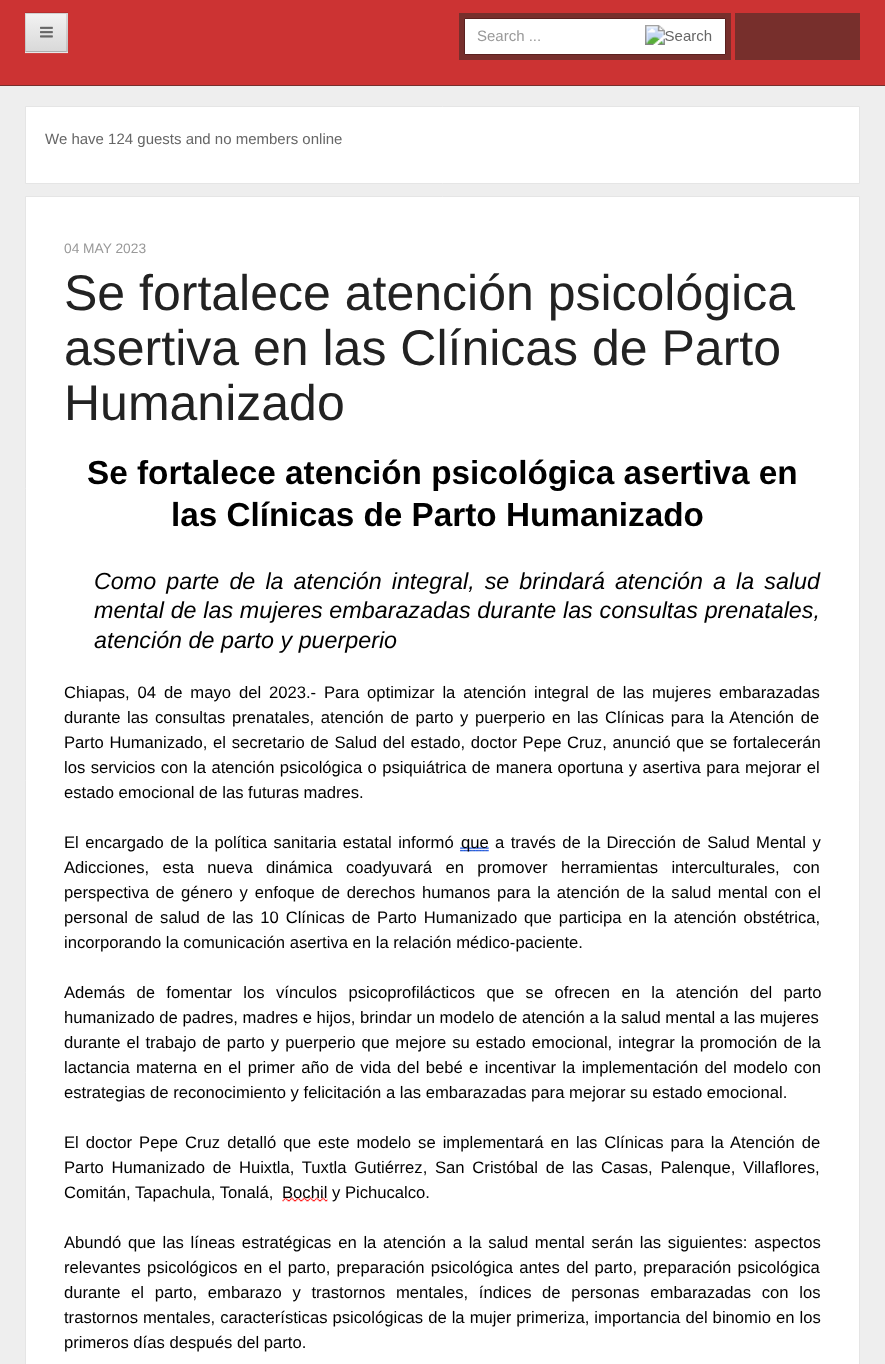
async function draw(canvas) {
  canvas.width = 885
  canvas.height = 1364
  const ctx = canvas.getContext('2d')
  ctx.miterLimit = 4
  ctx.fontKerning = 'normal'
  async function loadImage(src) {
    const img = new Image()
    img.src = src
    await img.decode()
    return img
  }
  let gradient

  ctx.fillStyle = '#eee'
  ctx.fillRect(0, 0, 885, 1364)
  ctx.fillStyle = '#c33'
  ctx.fillRect(0, 0, 885, 85)
  ctx.fillStyle = '#772f2c'
  ctx.fillRect(0, 85, 885, 1)
  ctx.fillStyle = '#d04242'
  ctx.beginPath()
  ctx.moveTo(25, 52)
  ctx.lineTo(25, 54)
  ctx.lineTo(68, 54)
  ctx.lineTo(68, 14)
  ctx.lineTo(68, 52)
  ctx.closePath()
  ctx.fill()
  ctx.fillStyle = '#e8e8e8'
  ctx.fillRect(25, 13, 43, 40)
  gradient = ctx.createLinearGradient(46, 14, 46, 51)
  gradient.addColorStop(0, '#f2f2f2')
  gradient.addColorStop(1, '#d9d9d9')
  ctx.fillStyle = gradient
  ctx.fillRect(25, 14, 43, 37)
  ctx.fillStyle = '#0000001a'
  ctx.beginPath()
  ctx.moveTo(25, 12)
  ctx.lineTo(68, 12)
  ctx.lineTo(66, 14)
  ctx.lineTo(26, 14)
  ctx.closePath()
  ctx.fill()
  ctx.beginPath()
  ctx.moveTo(68, 12)
  ctx.lineTo(68, 52)
  ctx.lineTo(66, 51)
  ctx.lineTo(66, 14)
  ctx.closePath()
  ctx.fill()
  ctx.fillStyle = '#00000040'
  ctx.beginPath()
  ctx.moveTo(68, 52)
  ctx.lineTo(25, 52)
  ctx.lineTo(26, 51)
  ctx.lineTo(66, 51)
  ctx.closePath()
  ctx.fill()
  ctx.fillStyle = '#0000001a'
  ctx.beginPath()
  ctx.moveTo(25, 52)
  ctx.lineTo(25, 12)
  ctx.lineTo(26, 14)
  ctx.lineTo(26, 51)
  ctx.closePath()
  ctx.fill()
  ctx.drawImage(await loadImage('image0.png'), 40, 26, 13, 12)
  ctx.fillStyle = '#772f2c'
  ctx.fillRect(459, 13, 272, 47)
  ctx.fillStyle = '#fff'
  ctx.beginPath()
  ctx.rect(464.5, 18.5, 261, 36)
  ctx.fill()
  ctx.strokeStyle = '#5b211f'
  ctx.stroke()
  ctx.font = '15px Liberation Sans'
  ctx.fillStyle = '#999'
  ctx.fillText('Search ...', 477, 41)
  ctx.drawImage(await loadImage('image1.png'), 645, 25, 67, 20)
  ctx.fillStyle = '#772f2c'
  ctx.fillRect(735, 13, 125, 47)
  ctx.fillStyle = '#fff'
  ctx.beginPath()
  ctx.rect(25.5, 106.5, 834, 77)
  ctx.fill()
  ctx.strokeStyle = '#e5e5e5'
  ctx.stroke()
  ctx.fillStyle = '#666'
  ctx.fillText('We have 124 guests and no members online', 45, 144)
  ctx.fillStyle = '#fff'
  ctx.beginPath()
  ctx.rect(25.5, 196.5, 834, 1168)
  ctx.fill()
  ctx.stroke()
  ctx.font = '13.75px Liberation Sans'
  ctx.fillStyle = '#999'
  ctx.fillText('04 MAY 2023', 64, 253)
  ctx.font = '50px Liberation Sans'
  ctx.fillStyle = '#222'
  ctx.fillText('Se fortalece atención psicológica', 64, 310)
  ctx.fillText('asertiva en las Clínicas de Parto', 64, 365)
  ctx.fillText('Humanizado', 64, 420)
  ctx.font = 'bold 33.3px Liberation Sans'
  ctx.fillStyle = '#000'
  ctx.fillText('Se fortalece atención psicológica asertiva en', 87, 484)
  ctx.fillText('las Clínicas de Parto Humanizado', 171, 526)
  ctx.wordSpacing = '3.6px'
  ctx.font = 'italic 23.3px Liberation Sans'
  ctx.fillText('Como parte de la atención integral, se brindará atención a la salud', 94, 589)
  ctx.wordSpacing = '0.25px'
  ctx.fillText('mental de las mujeres embarazadas durante las consultas prenatales,', 94, 618)
  ctx.wordSpacing = '0px'
  ctx.fillText('atención de parto y puerperio', 94, 648)
  ctx.wordSpacing = '3.25px'
  ctx.font = '16.65px Liberation Sans'
  ctx.fillText('Chiapas, 04 de mayo del 2023.- Para optimizar la atención integral de las mujeres embarazadas', 64, 698)
  ctx.wordSpacing = '2px'
  ctx.fillText('durante las consultas prenatales, atención de parto y puerperio en las Clínicas para la Atención de', 64, 723)
  ctx.wordSpacing = '1px'
  ctx.fillText('Parto Humanizado, el secretario de Salud del estado, doctor Pepe Cruz, anunció que se fortalecerán', 64, 748)
  ctx.wordSpacing = '0.8px'
  ctx.fillText('los servicios con la atención psicológica o psiquiátrica de manera oportuna y asertiva para mejorar el', 64, 773)
  ctx.wordSpacing = '0px'
  ctx.fillText('estado emocional de las futuras madres.', 64, 798)
  ctx.wordSpacing = '1.75px'
  ctx.fillText('El encargado de la política sanitaria estatal informó', 64, 848)
  ctx.drawImage(await loadImage('image2.png'), 460, 847, 29, 5)
  ctx.wordSpacing = '0px'
  ctx.fillText('que', 461, 848)
  ctx.wordSpacing = '1.75px'
  ctx.fillText('a través de la Dirección de Salud Mental y', 495, 848)
  ctx.wordSpacing = '8.75px'
  ctx.fillText('Adicciones, esta nueva dinámica coadyuvará en promover herramientas interculturales, con', 64, 873)
  ctx.wordSpacing = '2.1px'
  ctx.fillText('perspectiva de género y enfoque de derechos humanos para la atención de la salud mental con el', 64, 898)
  ctx.wordSpacing = '2.25px'
  ctx.fillText('personal de salud de las 10 Clínicas de Parto Humanizado que participa en la atención obstétrica,', 64, 923)
  ctx.wordSpacing = '0px'
  ctx.fillText('incorporando la comunicación asertiva en la relación médico-paciente.', 64, 948)
  ctx.wordSpacing = '6.75px'
  ctx.fillText('Además de fomentar los vínculos psicoprofilácticos que se ofrecen en la atención del parto', 64, 998)
  ctx.wordSpacing = '0px'
  ctx.fillText('humanizado de padres, madres e hijos, brindar un modelo de atención a la salud mental a las mujeres', 64, 1023)
  ctx.wordSpacing = '1.4px'
  ctx.fillText('durante el trabajo de parto y puerperio que mejore su estado emocional, integrar la promoción de la', 64, 1048)
  ctx.wordSpacing = '1.75px'
  ctx.fillText('lactancia materna en el primer año de vida del bebé e incentivar la implementación del modelo con', 64, 1073)
  ctx.wordSpacing = '0px'
  ctx.fillText('estrategias de reconocimiento y felicitación a las embarazadas para mejorar su estado emocional.', 64, 1098)
  ctx.wordSpacing = '2.4px'
  ctx.fillText('El doctor Pepe Cruz detalló que este modelo se implementará en las Clínicas para la Atención de', 64, 1148)
  ctx.wordSpacing = '3.1px'
  ctx.fillText('Parto Humanizado de Huixtla, Tuxtla Gutiérrez, San Cristóbal de las Casas, Palenque, Villaflores,', 64, 1173)
  ctx.wordSpacing = '0px'
  ctx.fillText('Comitán, Tapachula, Tonalá,', 64, 1198)
  ctx.drawImage(await loadImage('image3.png'), 282, 1197, 46, 5)
  ctx.fillText('Bochil y Pichucalco.', 282, 1198)
  ctx.wordSpacing = '2.1px'
  ctx.fillText('Abundó que las líneas estratégicas en la atención a la salud mental serán las siguientes: aspectos', 64, 1248)
  ctx.wordSpacing = '1.6px'
  ctx.fillText('relevantes psicológicos en el parto, preparación psicológica antes del parto, preparación psicológica', 64, 1273)
  ctx.wordSpacing = '6px'
  ctx.fillText('durante el parto, embarazo y trastornos mentales, índices de personas embarazadas con los', 64, 1298)
  ctx.wordSpacing = '0.4px'
  ctx.fillText('trastornos mentales, características psicológicas de la mujer primeriza, importancia del binomio en los', 64, 1323)
  ctx.wordSpacing = '0px'
  ctx.fillText('primeros días después del parto.', 64, 1348)
}

draw(document.querySelector('canvas'))
